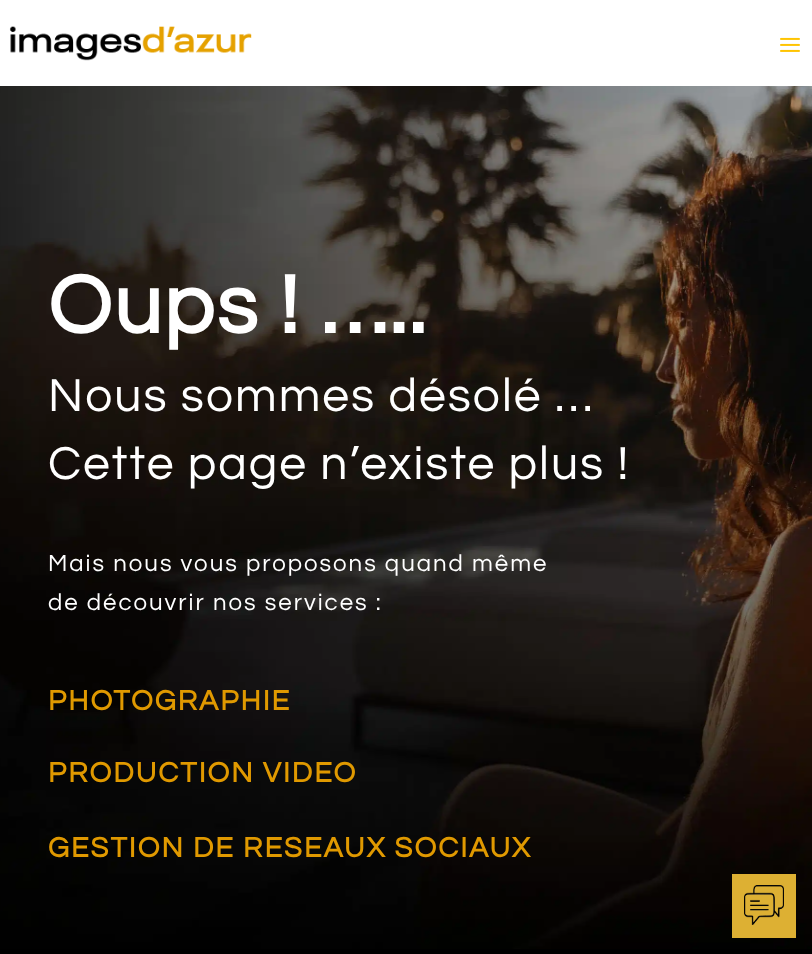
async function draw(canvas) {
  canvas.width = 812
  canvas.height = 954
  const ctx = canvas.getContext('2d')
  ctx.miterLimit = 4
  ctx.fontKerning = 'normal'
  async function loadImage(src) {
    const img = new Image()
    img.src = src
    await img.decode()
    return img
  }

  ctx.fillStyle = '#000'
  ctx.fillRect(0, 0, 812, 954)
  ctx.fillStyle = '#fff'
  ctx.fillRect(0, 0, 812, 86)
  ctx.drawImage(await loadImage('image0.png'), 9, 26, 243, 35)
  ctx.drawImage(await loadImage('image1.png'), 780, 37, 20, 15)
  ctx.drawImage(await loadImage('image2.png'), 0, 86, 812, 863)
  ctx.letterSpacing = '2px'
  ctx.font = 'bold 85px Questrial'
  ctx.fillText('Oups ! …..', 48, 333)
  ctx.font = '48px Questrial'
  ctx.fillText('Nous sommes désolé …', 48, 411)
  ctx.fillText('Cette page n’existe plus !', 48, 479)
  ctx.font = '24px Questrial'
  ctx.fillText('Mais nous vous proposons quand même', 48, 571)
  ctx.fillText('de découvrir nos services :', 48, 610)
  ctx.font = 'bold 29px Questrial'
  ctx.fillStyle = '#e09900'
  ctx.fillText('PHOTOGRAPHIE', 48, 710)
  ctx.fillText('PRODUCTION VIDEO', 48, 782)
  ctx.fillText('GESTION DE RESEAUX SOCIAUX', 48, 857)
  ctx.fillStyle = '#ddb033'
  ctx.fillRect(732, 874, 64, 64)
  ctx.drawImage(await loadImage('image3.png'), 744, 885, 40, 40)
}

draw(document.querySelector('canvas'))
